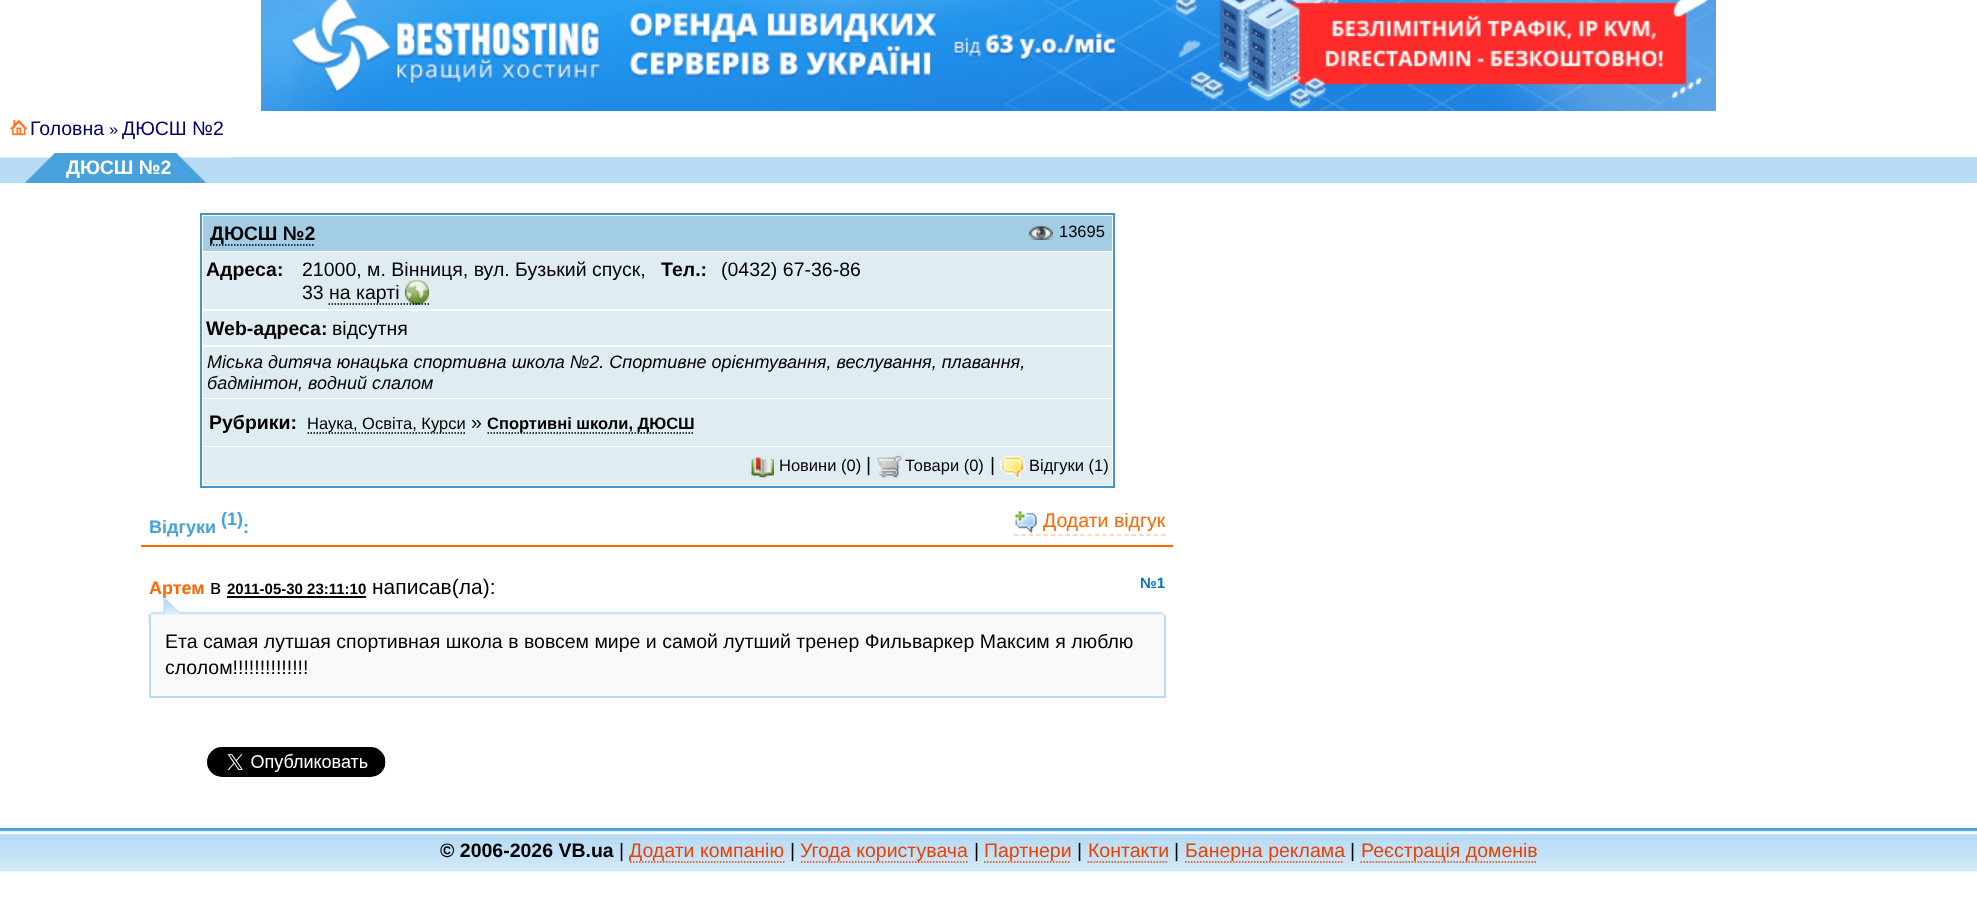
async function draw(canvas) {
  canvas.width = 1977
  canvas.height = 919
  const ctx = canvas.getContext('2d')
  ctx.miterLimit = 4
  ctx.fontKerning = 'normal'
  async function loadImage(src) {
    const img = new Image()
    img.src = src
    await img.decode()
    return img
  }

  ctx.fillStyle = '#fff'
  ctx.fillRect(0, 0, 1977, 919)
  ctx.drawImage(await loadImage('image0.png'), 261, 0, 1455, 111)
  ctx.drawImage(await loadImage('image1.png'), 10, 120, 18, 16)
  ctx.font = '19.5px Liberation Sans'
  ctx.fillStyle = '#006'
  ctx.fillText('Головна', 30, 135)
  ctx.font = '16.5px Liberation Sans'
  ctx.fillText('»', 109, 135)
  ctx.font = '19.5px Liberation Sans'
  ctx.fillText('ДЮСШ №2', 122, 135)
  ctx.fillStyle = '#b8dcf5'
  ctx.fillRect(231, 157, 1746, 26)
  ctx.fillStyle = '#48a1dc'
  ctx.fillRect(55, 153, 121, 30)
  ctx.drawImage(await loadImage('image2.png'), 0, 153, 55, 30)
  ctx.drawImage(await loadImage('image3.png'), 176, 153, 55, 30)
  ctx.font = 'bold 19.5px Liberation Sans'
  ctx.fillStyle = '#fff'
  ctx.fillText('ДЮСШ №2', 66, 174)
  ctx.strokeStyle = '#4395cc'
  ctx.lineWidth = 2
  ctx.strokeRect(201, 214, 913, 273)
  ctx.fillStyle = '#a3cce5'
  ctx.fillRect(203, 216, 909, 35)
  ctx.fillStyle = '#000'
  ctx.fillText('ДЮСШ №2', 210, 240)
  ctx.beginPath()
  ctx.moveTo(210, 245)
  ctx.lineTo(315, 245)
  ctx.strokeStyle = '#000'
  ctx.lineWidth = 1.5
  ctx.setLineDash([1.5, 1.5])
  ctx.stroke()
  ctx.drawImage(await loadImage('image4.png'), 1029, 226, 24, 14)
  ctx.font = '16.5px Liberation Sans'
  ctx.fillText('13695', 1059, 237)
  ctx.fillStyle = '#dfecf2'
  ctx.fillRect(203, 252, 909, 57)
  ctx.font = 'bold 19.5px Liberation Sans'
  ctx.fillStyle = '#000'
  ctx.fillText('Адреса:', 206, 276)
  ctx.font = '19.5px Liberation Sans'
  ctx.fillText('21000, м. Вінниця, вул. Бузький спуск,', 302, 276)
  ctx.fillText('33', 302, 299)
  ctx.drawImage(await loadImage('image5.png'), 405, 280, 24, 25)
  ctx.beginPath()
  ctx.moveTo(328.5, 304)
  ctx.lineTo(429, 304)
  ctx.stroke()
  ctx.fillText('на карті', 329, 299)
  ctx.font = 'bold 19.5px Liberation Sans'
  ctx.fillText('Тел.:', 661, 276)
  ctx.font = '19.5px Liberation Sans'
  ctx.fillText('(0432) 67-36-86', 721, 276)
  ctx.fillStyle = '#dfecf2'
  ctx.fillRect(203, 311, 909, 34)
  ctx.font = 'bold 19.5px Liberation Sans'
  ctx.fillStyle = '#000'
  ctx.fillText('Web-адреса:', 206, 335)
  ctx.font = '19.5px Liberation Sans'
  ctx.fillText('відсутня', 332, 335)
  ctx.fillStyle = '#dfecf2'
  ctx.fillRect(203, 347, 909, 51)
  ctx.font = 'italic 18px Liberation Sans'
  ctx.fillStyle = '#000'
  ctx.fillText('Міська дитяча юнацька спортивна школа №2. Спортивне орієнтування, веслування, плавання,', 207, 368)
  ctx.fillText('бадмінтон, водний слалом', 207, 389)
  ctx.fillStyle = '#dfecf2'
  ctx.fillRect(203, 399, 909, 47)
  ctx.font = 'bold 19.5px Liberation Sans'
  ctx.fillStyle = '#000'
  ctx.fillText('Рубрики:', 209, 429)
  ctx.beginPath()
  ctx.moveTo(307.5, 433)
  ctx.lineTo(465, 433)
  ctx.stroke()
  ctx.font = '16.5px Liberation Sans'
  ctx.fillText('Наука, Освіта, Курси', 307, 429)
  ctx.font = '19.5px Liberation Sans'
  ctx.fillText('»', 471, 429)
  ctx.beginPath()
  ctx.moveTo(487.5, 433)
  ctx.lineTo(694.5, 433)
  ctx.stroke()
  ctx.font = 'bold 16.5px Liberation Sans'
  ctx.fillText('Спортивні школи, ДЮСШ', 487, 429)
  ctx.fillStyle = '#dfecf2'
  ctx.fillRect(203, 447, 909, 38)
  ctx.drawImage(await loadImage('image6.png'), 751, 457, 23, 21)
  ctx.font = '16.5px Liberation Sans'
  ctx.fillStyle = '#000'
  ctx.fillText('Новини (0)', 779, 471)
  ctx.font = '19.5px Liberation Sans'
  ctx.fillText('|', 866, 471)
  ctx.drawImage(await loadImage('image7.png'), 877, 455, 25, 23)
  ctx.font = '16.5px Liberation Sans'
  ctx.fillText('Товари (0)', 905, 471)
  ctx.font = '19.5px Liberation Sans'
  ctx.fillText('|', 990, 471)
  ctx.drawImage(await loadImage('image8.png'), 1000, 456, 25, 23)
  ctx.font = '16.5px Liberation Sans'
  ctx.fillText('Відгуки (1)', 1029, 471)
  ctx.fillStyle = '#ff6500'
  ctx.fillRect(141, 545, 1032, 2)
  ctx.font = 'bold 18px Liberation Sans'
  ctx.fillStyle = '#48a1dc'
  ctx.fillText('Відгуки', 149, 533)
  ctx.fillText('(1)', 221, 525)
  ctx.fillText(':', 243, 533)
  ctx.beginPath()
  ctx.moveTo(1014, 535)
  ctx.lineTo(1165.5, 535)
  ctx.strokeStyle = '#fca'
  ctx.setLineDash([4.5, 2.85])
  ctx.stroke()
  ctx.drawImage(await loadImage('image9.png'), 1015, 511, 22, 22)
  ctx.font = '19.5px Liberation Sans'
  ctx.fillStyle = '#ff6500'
  ctx.fillText('Додати відгук', 1043, 527)
  ctx.font = 'bold 18px Liberation Sans'
  ctx.fillText('Артем', 149, 594)
  ctx.font = '21px Liberation Sans'
  ctx.fillStyle = '#000'
  ctx.fillText('в', 210, 594)
  ctx.font = 'bold 15px Liberation Sans'
  ctx.fillText('2011-05-30 23:11:10', 227, 594)
  ctx.fillRect(227, 596, 139, 2)
  ctx.drawImage(await loadImage('image10.png'), 148, 598, 1018, 25)
  ctx.font = '21px Liberation Sans'
  ctx.fillText('написав(ла):', 372, 594)
  ctx.font = 'bold 15px Liberation Sans'
  ctx.fillStyle = '#0077b9'
  ctx.fillText('№1', 1140, 588)
  ctx.fillStyle = '#f9f9f9'
  ctx.fillRect(151, 615, 1013, 81)
  ctx.fillStyle = '#b8dcf5'
  ctx.fillRect(1164, 615, 2, 83)
  ctx.fillRect(149, 696, 1017, 2)
  ctx.fillRect(149, 615, 2, 83)
  ctx.font = '19.5px Liberation Sans'
  ctx.fillStyle = '#000'
  ctx.fillText('Ета самая лутшая спортивная школа в вовсем мире и самой лутший тренер Фильваркер Максим я люблю', 165, 648)
  ctx.fillText('слолом!!!!!!!!!!!!!!', 165, 674)
  ctx.drawImage(await loadImage('image11.png'), 207, 747, 179, 30)
  ctx.drawImage(await loadImage('image12.png'), 0, 828, 1977, 44)
  ctx.font = 'bold 19.5px Liberation Sans'
  ctx.fillText('© 2006-2026 VB.ua', 440, 857)
  ctx.font = '19.5px Liberation Sans'
  ctx.fillText('|', 619, 857)
  ctx.fillStyle = '#ea4100'
  ctx.fillText('Додати компанію', 629, 857)
  ctx.beginPath()
  ctx.moveTo(630, 862)
  ctx.lineTo(784.5, 862)
  ctx.strokeStyle = '#ea4100'
  ctx.setLineDash([1.5, 1.5])
  ctx.stroke()
  ctx.fillStyle = '#000'
  ctx.fillText('|', 790, 857)
  ctx.beginPath()
  ctx.moveTo(801, 862)
  ctx.lineTo(967.5, 862)
  ctx.stroke()
  ctx.fillStyle = '#ea4100'
  ctx.fillText('Угода користувача', 800, 857)
  ctx.fillStyle = '#000'
  ctx.fillText('|', 974, 857)
  ctx.beginPath()
  ctx.moveTo(984, 862)
  ctx.lineTo(1071, 862)
  ctx.stroke()
  ctx.fillStyle = '#ea4100'
  ctx.fillText('Партнери', 984, 857)
  ctx.fillStyle = '#000'
  ctx.fillText('|', 1077, 857)
  ctx.fillStyle = '#ea4100'
  ctx.fillText('Контакти', 1088, 857)
  ctx.beginPath()
  ctx.moveTo(1087.5, 862)
  ctx.lineTo(1168.5, 862)
  ctx.stroke()
  ctx.fillStyle = '#000'
  ctx.fillText('|', 1174, 857)
  ctx.beginPath()
  ctx.moveTo(1185, 862)
  ctx.lineTo(1344, 862)
  ctx.stroke()
  ctx.fillStyle = '#ea4100'
  ctx.fillText('Банерна реклама', 1185, 857)
  ctx.fillStyle = '#000'
  ctx.fillText('|', 1350, 857)
  ctx.beginPath()
  ctx.moveTo(1360.5, 862)
  ctx.lineTo(1537.5, 862)
  ctx.stroke()
  ctx.fillStyle = '#ea4100'
  ctx.fillText('Реєстрація доменів', 1361, 857)
}

draw(document.querySelector('canvas'))
